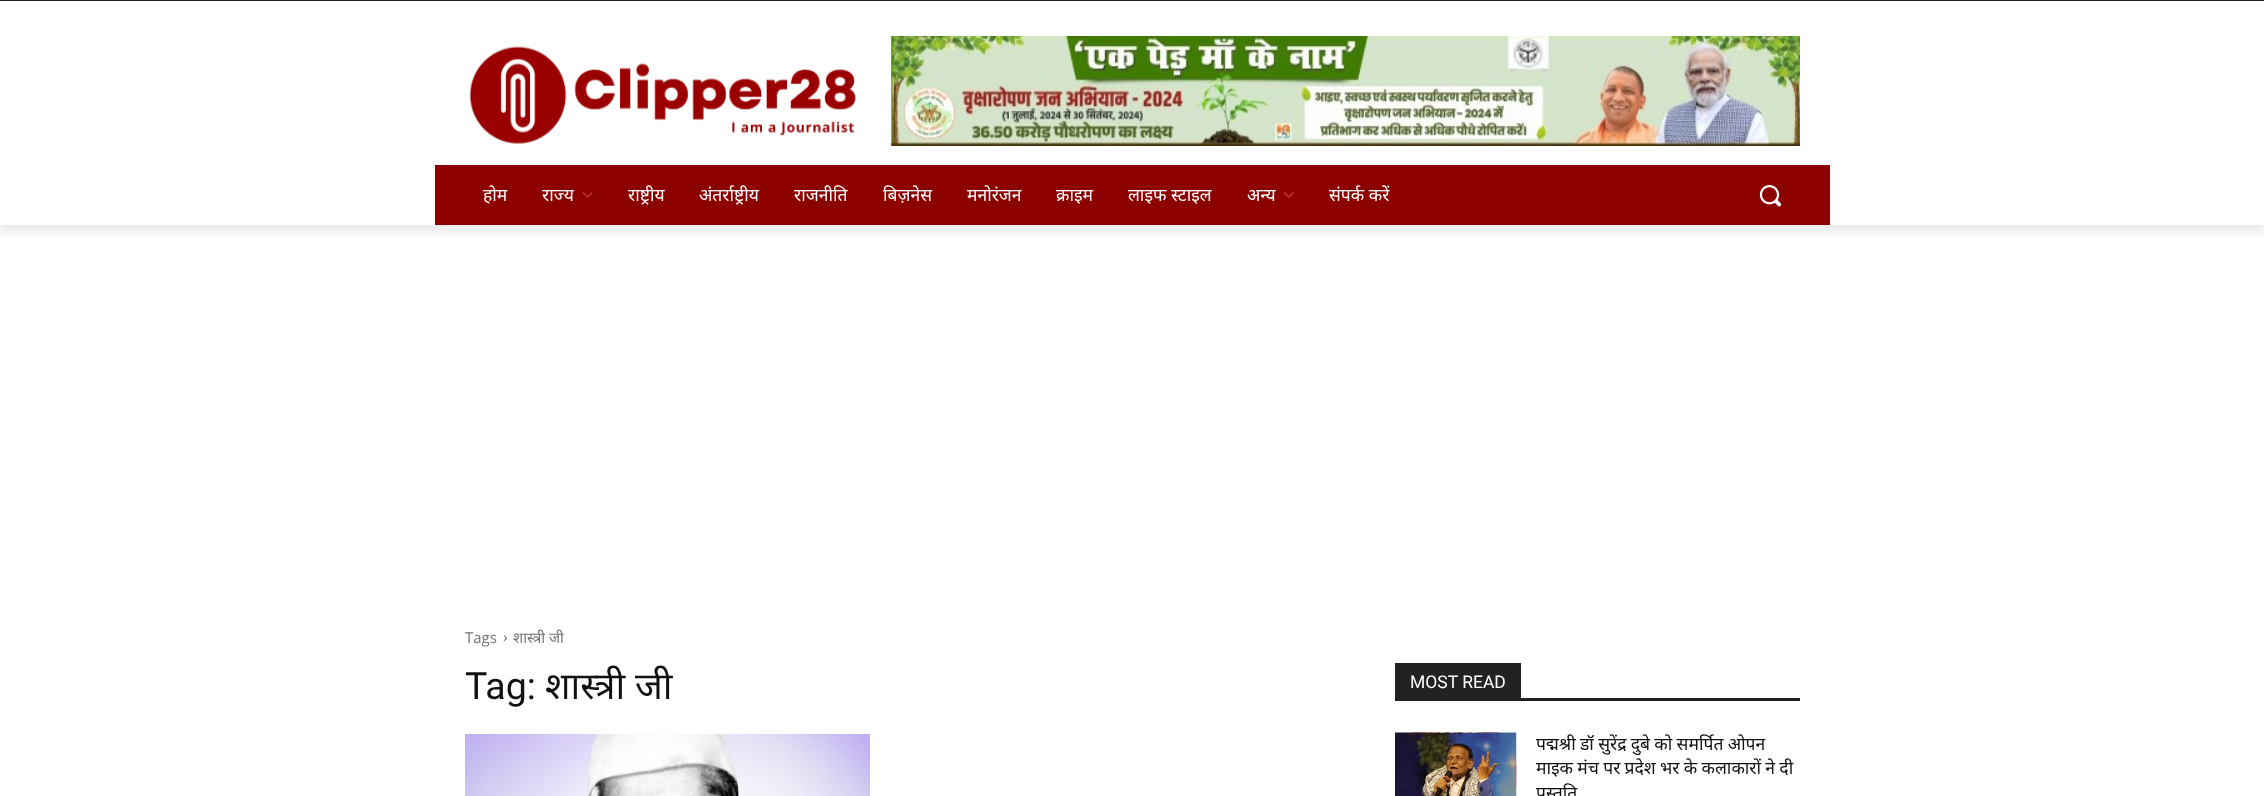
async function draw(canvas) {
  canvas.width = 2264
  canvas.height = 796
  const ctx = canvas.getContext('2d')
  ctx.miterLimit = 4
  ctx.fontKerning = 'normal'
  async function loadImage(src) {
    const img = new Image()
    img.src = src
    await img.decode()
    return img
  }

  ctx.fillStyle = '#fff'
  ctx.fillRect(0, 0, 2264, 796)
  ctx.fillStyle = '#222'
  ctx.fillRect(0, 0, 2264, 1)
  ctx.drawImage(await loadImage('image0.png'), 469, 46, 387, 98)
  ctx.drawImage(await loadImage('image1.png'), 891, 36, 909, 110)
  ctx.fillStyle = '#8c0000'
  ctx.fillRect(435, 165, 1395, 60)
  ctx.save()
  ctx.beginPath()
  ctx.rect(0, 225, 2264, 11)
  ctx.clip()
  ctx.fillStyle = '#00000014'
  ctx.filter = 'blur(5px)'
  ctx.beginPath()
  ctx.rect(0, 8, 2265, 225)
  ctx.fill()
  ctx.filter = 'none'
  ctx.restore()
  ctx.font = '17.5px Noto Sans'
  ctx.fillStyle = '#fff'
  ctx.fillText('होम', 483, 201)
  ctx.fillText('राज्य', 542, 201)
  ctx.drawImage(await loadImage('image2.png'), 582, 192, 11, 6)
  ctx.fillText('राष्ट्रीय', 628, 201)
  ctx.fillText('अंतर्राष्ट्रीय', 699, 201)
  ctx.fillText('राजनीति', 794, 201)
  ctx.fillText('बिज़नेस', 883, 201)
  ctx.fillText('मनोरंजन', 967, 201)
  ctx.fillText('क्राइम', 1056, 201)
  ctx.fillText('लाइफ स्टाइल', 1128, 201)
  ctx.fillText('अन्य', 1247, 201)
  ctx.drawImage(await loadImage('image3.png'), 1283, 192, 11, 6)
  ctx.fillText('संपर्क करें', 1329, 201)
  ctx.drawImage(await loadImage('image4.png'), 1759, 185, 23, 22)
  ctx.font = '15px Open Sans'
  ctx.fillStyle = '#747474'
  ctx.fillText('Tags', 465, 643)
  ctx.drawImage(await loadImage('image5.png'), 503, 635, 5, 7)
  ctx.font = '15px Noto Sans'
  ctx.fillText('शास्त्री जी', 513, 643)
  ctx.font = '37.5px Roboto'
  ctx.fillStyle = '#111'
  ctx.fillText('Tag:', 465, 699)
  ctx.font = '37.5px Noto Sans'
  ctx.fillText('शास्त्री जी', 545, 699)
  ctx.drawImage(await loadImage('image6.png'), 465, 734, 405, 62)
  ctx.fillStyle = '#222'
  ctx.fillRect(1395, 698, 405, 3)
  ctx.fillRect(1395, 663, 126, 35)
  ctx.font = '17.5px Roboto'
  ctx.fillStyle = '#fff'
  ctx.fillText('MOST READ', 1410, 688)
  ctx.drawImage(await loadImage('image7.png'), 1395, 732, 122, 64)
  ctx.drawImage(await loadImage('image8.png'), 1395, 732, 122, 64)
  ctx.wordSpacing = '-0.25px'
  ctx.font = '17.5px Noto Sans'
  ctx.fillStyle = '#111'
  ctx.fillText('पद्मश्री डॉ सुरेंद्र दुबे को समर्पित ओपन', 1536, 750)
  ctx.fillText('माइक मंच पर प्रदेश भर के कलाकारों ने दी', 1536, 774)
  ctx.wordSpacing = '0px'
  ctx.fillText('प्रस्तुति', 1536, 799)
}

draw(document.querySelector('canvas'))
